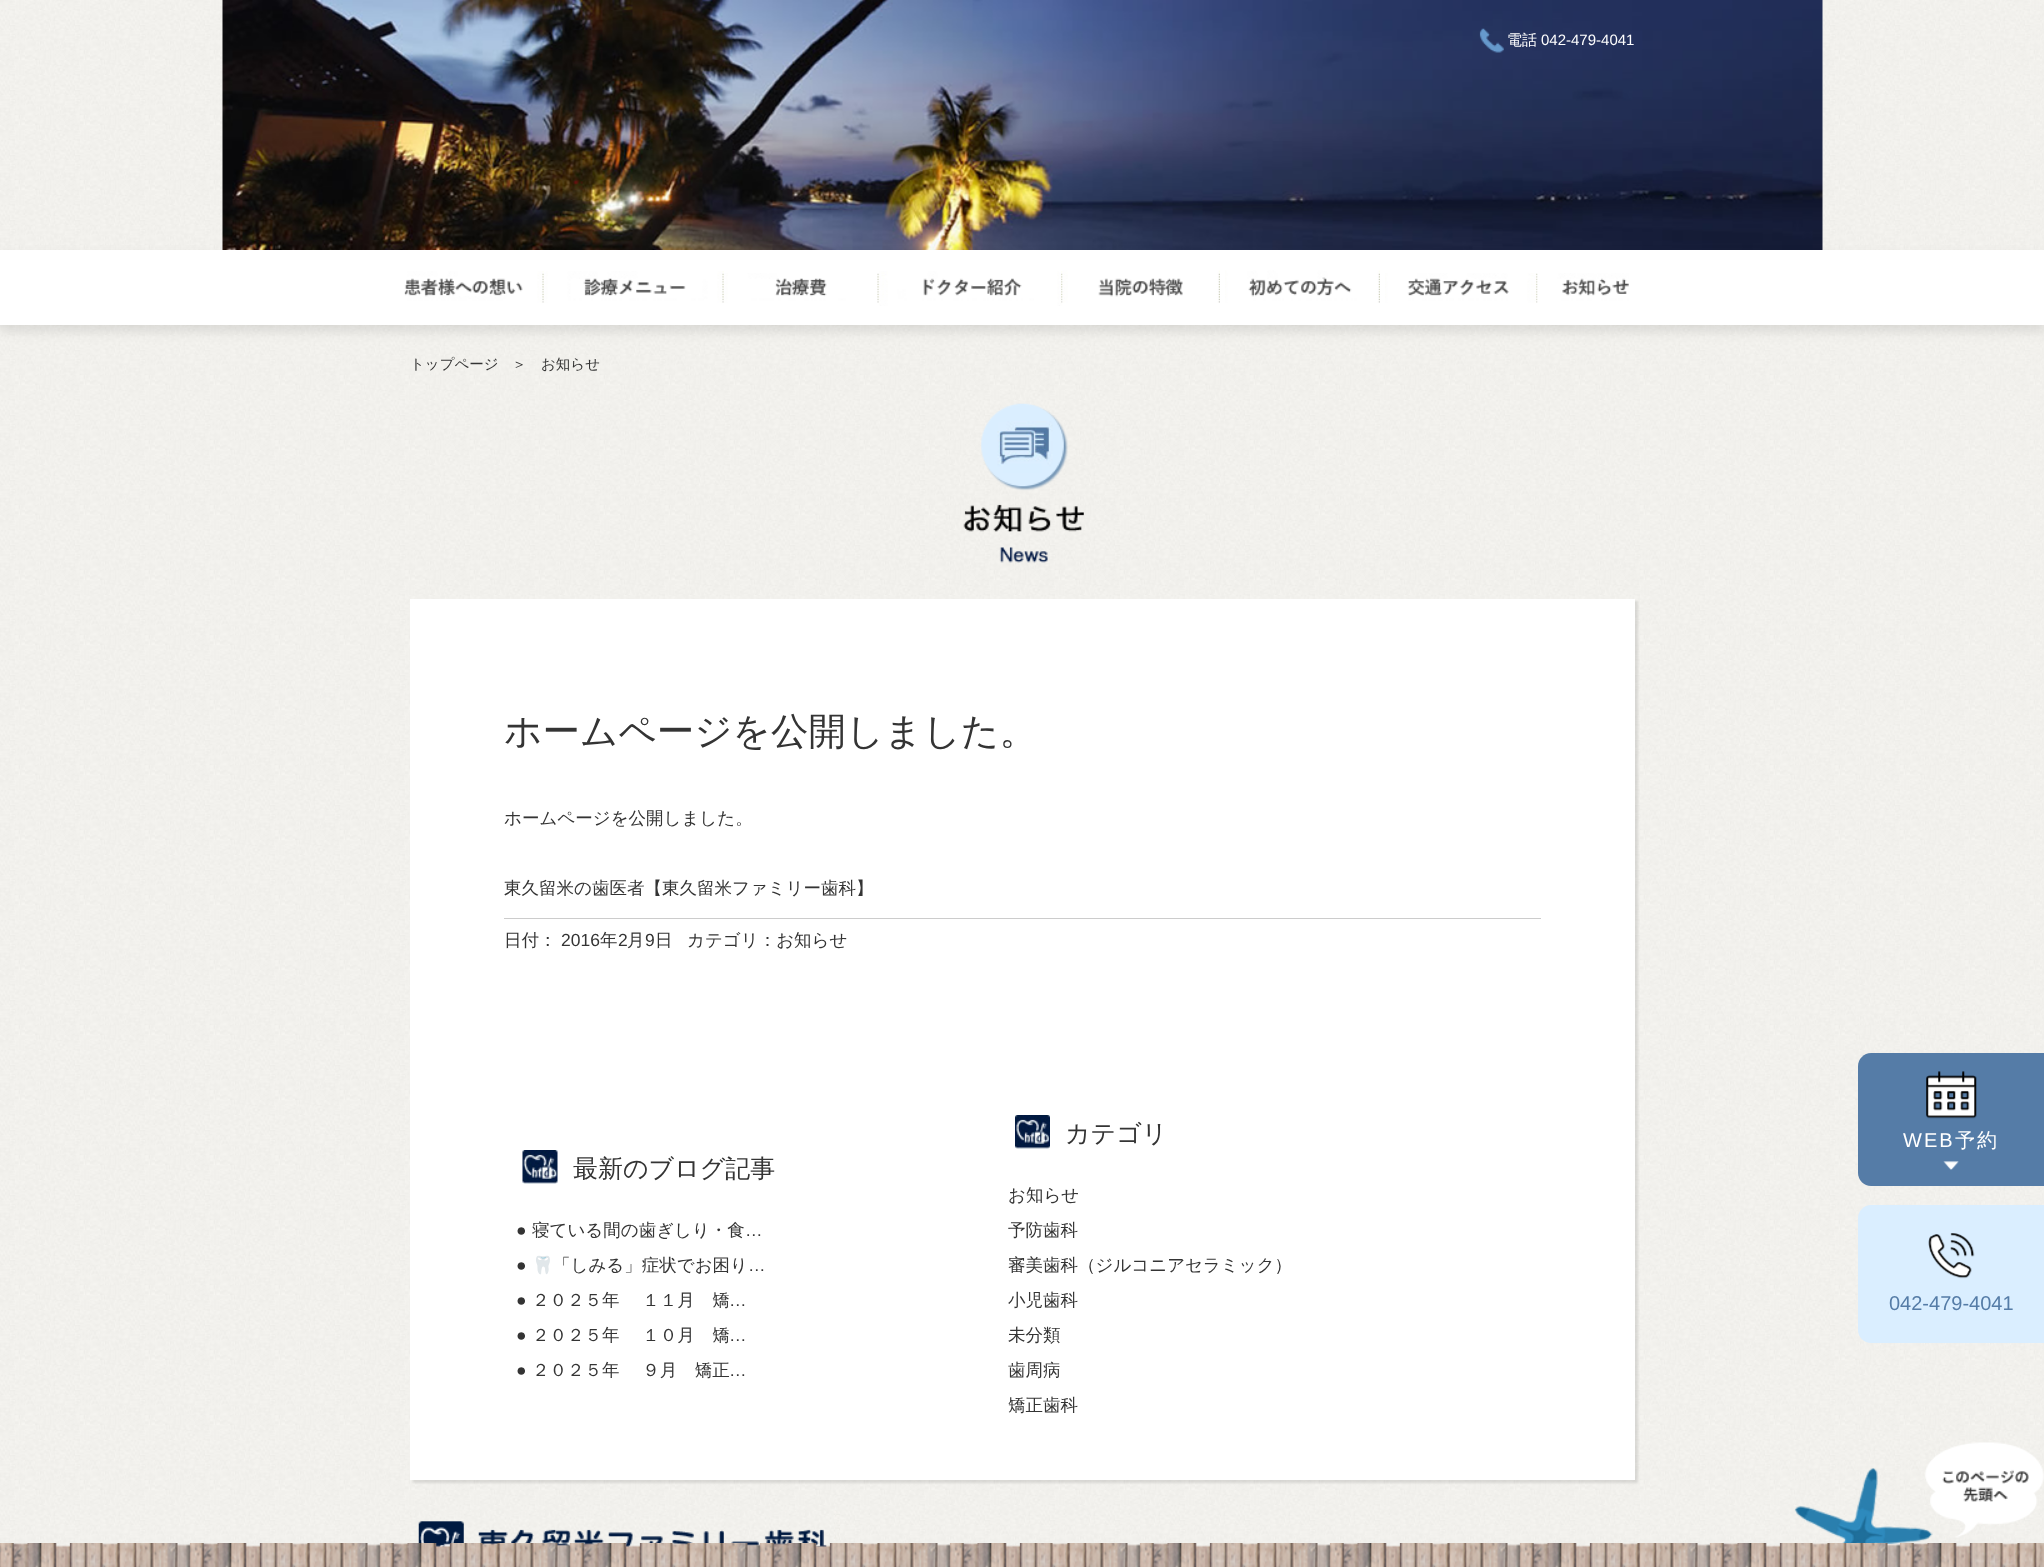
async function draw(canvas) {
  canvas.width = 2044
  canvas.height = 1567
  const ctx = canvas.getContext('2d')
  ctx.miterLimit = 4
  ctx.fontKerning = 'normal'
  async function loadImage(src) {
    const img = new Image()
    img.src = src
    await img.decode()
    return img
  }

  ctx.fillStyle = '#fff'
  ctx.fillRect(0, 0, 2044, 1567)
  ctx.drawImage(await loadImage('image0.png'), 2042, 0, 2, 1543)
  ctx.drawImage(await loadImage('image1.png'), 0, 0, 2042, 1547)
  ctx.drawImage(await loadImage('image2.png'), 222, 0, 1601, 250)
  ctx.drawImage(await loadImage('image3.png'), 1479, 28, 25, 25)
  ctx.font = '500 15px WenQuanYi Zen Hei'
  ctx.fillText('電話', 1507, 45)
  ctx.font = '15px Liberation Sans'
  ctx.fillText('042-479-4041', 1541, 45)
  ctx.fillStyle = '#0000001a'
  ctx.filter = 'blur(6px)'
  ctx.beginPath()
  ctx.rect(0, 256, 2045, 75)
  ctx.fill()
  ctx.filter = 'none'
  ctx.fillStyle = '#fff'
  ctx.fillRect(0, 250, 2044, 75)
  ctx.drawImage(await loadImage('image4.png'), 404, 271, 140, 32)
  ctx.drawImage(await loadImage('image5.png'), 543, 271, 181, 32)
  ctx.drawImage(await loadImage('image6.png'), 723, 273, 156, 30)
  ctx.drawImage(await loadImage('image7.png'), 878, 271, 185, 35)
  ctx.drawImage(await loadImage('image8.png'), 1062, 270, 158, 33)
  ctx.drawImage(await loadImage('image9.png'), 1225, 270, 155, 33)
  ctx.drawImage(await loadImage('image10.png'), 1385, 273, 153, 30)
  ctx.drawImage(await loadImage('image11.png'), 1537, 273, 92, 30)
  ctx.font = '500 14.5px WenQuanYi Zen Hei'
  ctx.fillStyle = '#343434'
  ctx.fillText('トップページ', 410, 369)
  ctx.fillText('＞', 512, 369)
  ctx.fillText('お知らせ', 541, 369)
  ctx.drawImage(await loadImage('image12.png'), 963, 403, 121, 160)
  ctx.fillStyle = '#0000001a'
  ctx.filter = 'blur(1px)'
  ctx.beginPath()
  ctx.rect(413, 601, 1225, 882)
  ctx.fill()
  ctx.filter = 'none'
  ctx.fillStyle = '#fff'
  ctx.fillRect(410, 599, 1225, 881)
  ctx.font = '500 37.5px WenQuanYi Zen Hei'
  ctx.fillStyle = '#343434'
  ctx.fillText('ホームページを公開しました。', 504, 744)
  ctx.font = '500 17.5px WenQuanYi Zen Hei'
  ctx.fillText('ホームページを公開しました。', 504, 824)
  ctx.fillText('東久留米の歯医者【東久留米ファミリー歯科】', 504, 894)
  ctx.fillStyle = '#ccc'
  ctx.fillRect(504, 918, 1037, 1)
  ctx.fillStyle = '#343434'
  ctx.fillText('日付：', 504, 946)
  ctx.font = '17.5px Liberation Sans'
  ctx.fillText('2016', 561, 946)
  ctx.font = '500 17.5px WenQuanYi Zen Hei'
  ctx.fillText('年', 600, 946)
  ctx.font = '17.5px Liberation Sans'
  ctx.fillText('2', 618, 946)
  ctx.font = '500 17.5px WenQuanYi Zen Hei'
  ctx.fillText('月', 627, 946)
  ctx.font = '17.5px Liberation Sans'
  ctx.fillText('9', 645, 946)
  ctx.font = '500 17.5px WenQuanYi Zen Hei'
  ctx.fillText('日', 655, 946)
  ctx.fillText('カテゴリ：お知らせ', 687, 946)
  ctx.drawImage(await loadImage('image13.png'), 522, 1150, 36, 34)
  ctx.font = '500 25px WenQuanYi Zen Hei'
  ctx.fillText('最新のブログ記事', 573, 1177)
  ctx.font = '17.5px Liberation Sans'
  ctx.fillText('●', 516, 1236)
  ctx.font = '500 17.5px WenQuanYi Zen Hei'
  ctx.fillText('寝ている間の歯ぎしり・食', 532, 1236)
  ctx.font = '17.5px Liberation Sans'
  ctx.fillText('…', 745, 1236)
  ctx.fillText('●', 516, 1271)
  ctx.font = '17.5px Noto Color Emoji'
  ctx.fillText('🦷', 532, 1271)
  ctx.font = '500 17.5px WenQuanYi Zen Hei'
  ctx.fillText('「しみる」症状でお困り', 553, 1271)
  ctx.font = '17.5px Liberation Sans'
  ctx.fillText('…', 748, 1271)
  ctx.fillText('●', 516, 1306)
  ctx.font = '500 17.5px WenQuanYi Zen Hei'
  ctx.fillText('２０２５年　 １１月　矯', 532, 1306)
  ctx.font = '17.5px Liberation Sans'
  ctx.fillText('…', 729, 1306)
  ctx.fillText('●', 516, 1341)
  ctx.font = '500 17.5px WenQuanYi Zen Hei'
  ctx.fillText('２０２５年　 １０月　矯', 532, 1341)
  ctx.font = '17.5px Liberation Sans'
  ctx.fillText('…', 729, 1341)
  ctx.fillText('●', 516, 1376)
  ctx.font = '500 17.5px WenQuanYi Zen Hei'
  ctx.fillText('２０２５年　 ９月　矯正', 532, 1376)
  ctx.font = '17.5px Liberation Sans'
  ctx.fillText('…', 729, 1376)
  ctx.drawImage(await loadImage('image14.png'), 1015, 1115, 35, 34)
  ctx.font = '500 25px WenQuanYi Zen Hei'
  ctx.fillText('カテゴリ', 1065, 1142)
  ctx.font = '500 17.5px WenQuanYi Zen Hei'
  ctx.fillText('お知らせ', 1008, 1201)
  ctx.fillText('予防歯科', 1008, 1236)
  ctx.fillText('審美歯科（ジルコニアセラミック）', 1008, 1271)
  ctx.fillText('小児歯科', 1008, 1306)
  ctx.fillText('未分類', 1008, 1341)
  ctx.fillText('歯周病', 1008, 1376)
  ctx.fillText('矯正歯科', 1008, 1411)
  ctx.fillStyle = '#557ca7'
  ctx.beginPath()
  ctx.moveTo(1871, 1053)
  ctx.lineTo(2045, 1053)
  ctx.lineTo(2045, 1186)
  ctx.lineTo(1871, 1186)
  ctx.bezierCurveTo(1864, 1186, 1858, 1180, 1858, 1173)
  ctx.lineTo(1858, 1066)
  ctx.bezierCurveTo(1858, 1059, 1864, 1053, 1871, 1053)
  ctx.closePath()
  ctx.fill()
  ctx.drawImage(await loadImage('image15.png'), 1926, 1071, 51, 48)
  ctx.letterSpacing = '2px'
  ctx.font = '20px Liberation Sans'
  ctx.fillStyle = '#fff'
  ctx.fillText('WEB', 1903, 1147)
  ctx.font = '500 20px WenQuanYi Zen Hei'
  ctx.fillText('予約', 1955, 1147)
  ctx.drawImage(await loadImage('image16.png'), 1943, 1161, 16, 9)
  ctx.fillStyle = '#daeeff'
  ctx.beginPath()
  ctx.moveTo(1871, 1205)
  ctx.lineTo(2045, 1205)
  ctx.lineTo(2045, 1343)
  ctx.lineTo(1871, 1343)
  ctx.bezierCurveTo(1864, 1343, 1858, 1337, 1858, 1330)
  ctx.lineTo(1858, 1218)
  ctx.bezierCurveTo(1858, 1211, 1864, 1205, 1871, 1205)
  ctx.closePath()
  ctx.fill()
  ctx.drawImage(await loadImage('image17.png'), 1928, 1233, 47, 46)
  ctx.letterSpacing = '0px'
  ctx.font = '20px Liberation Sans'
  ctx.fillStyle = '#557ca7'
  ctx.fillText('042-479-4041', 1889, 1310)
  ctx.drawImage(await loadImage('image19.png'), 1925, 1442, 119, 96)
  ctx.drawImage(await loadImage('image18.png'), 1794, 1468, 139, 76)
  ctx.drawImage(await loadImage('image21.png'), 410, 1511, 430, 36)
  ctx.drawImage(await loadImage('image20.png'), 0, 1543, 2044, 24)
}

draw(document.querySelector('canvas'))
